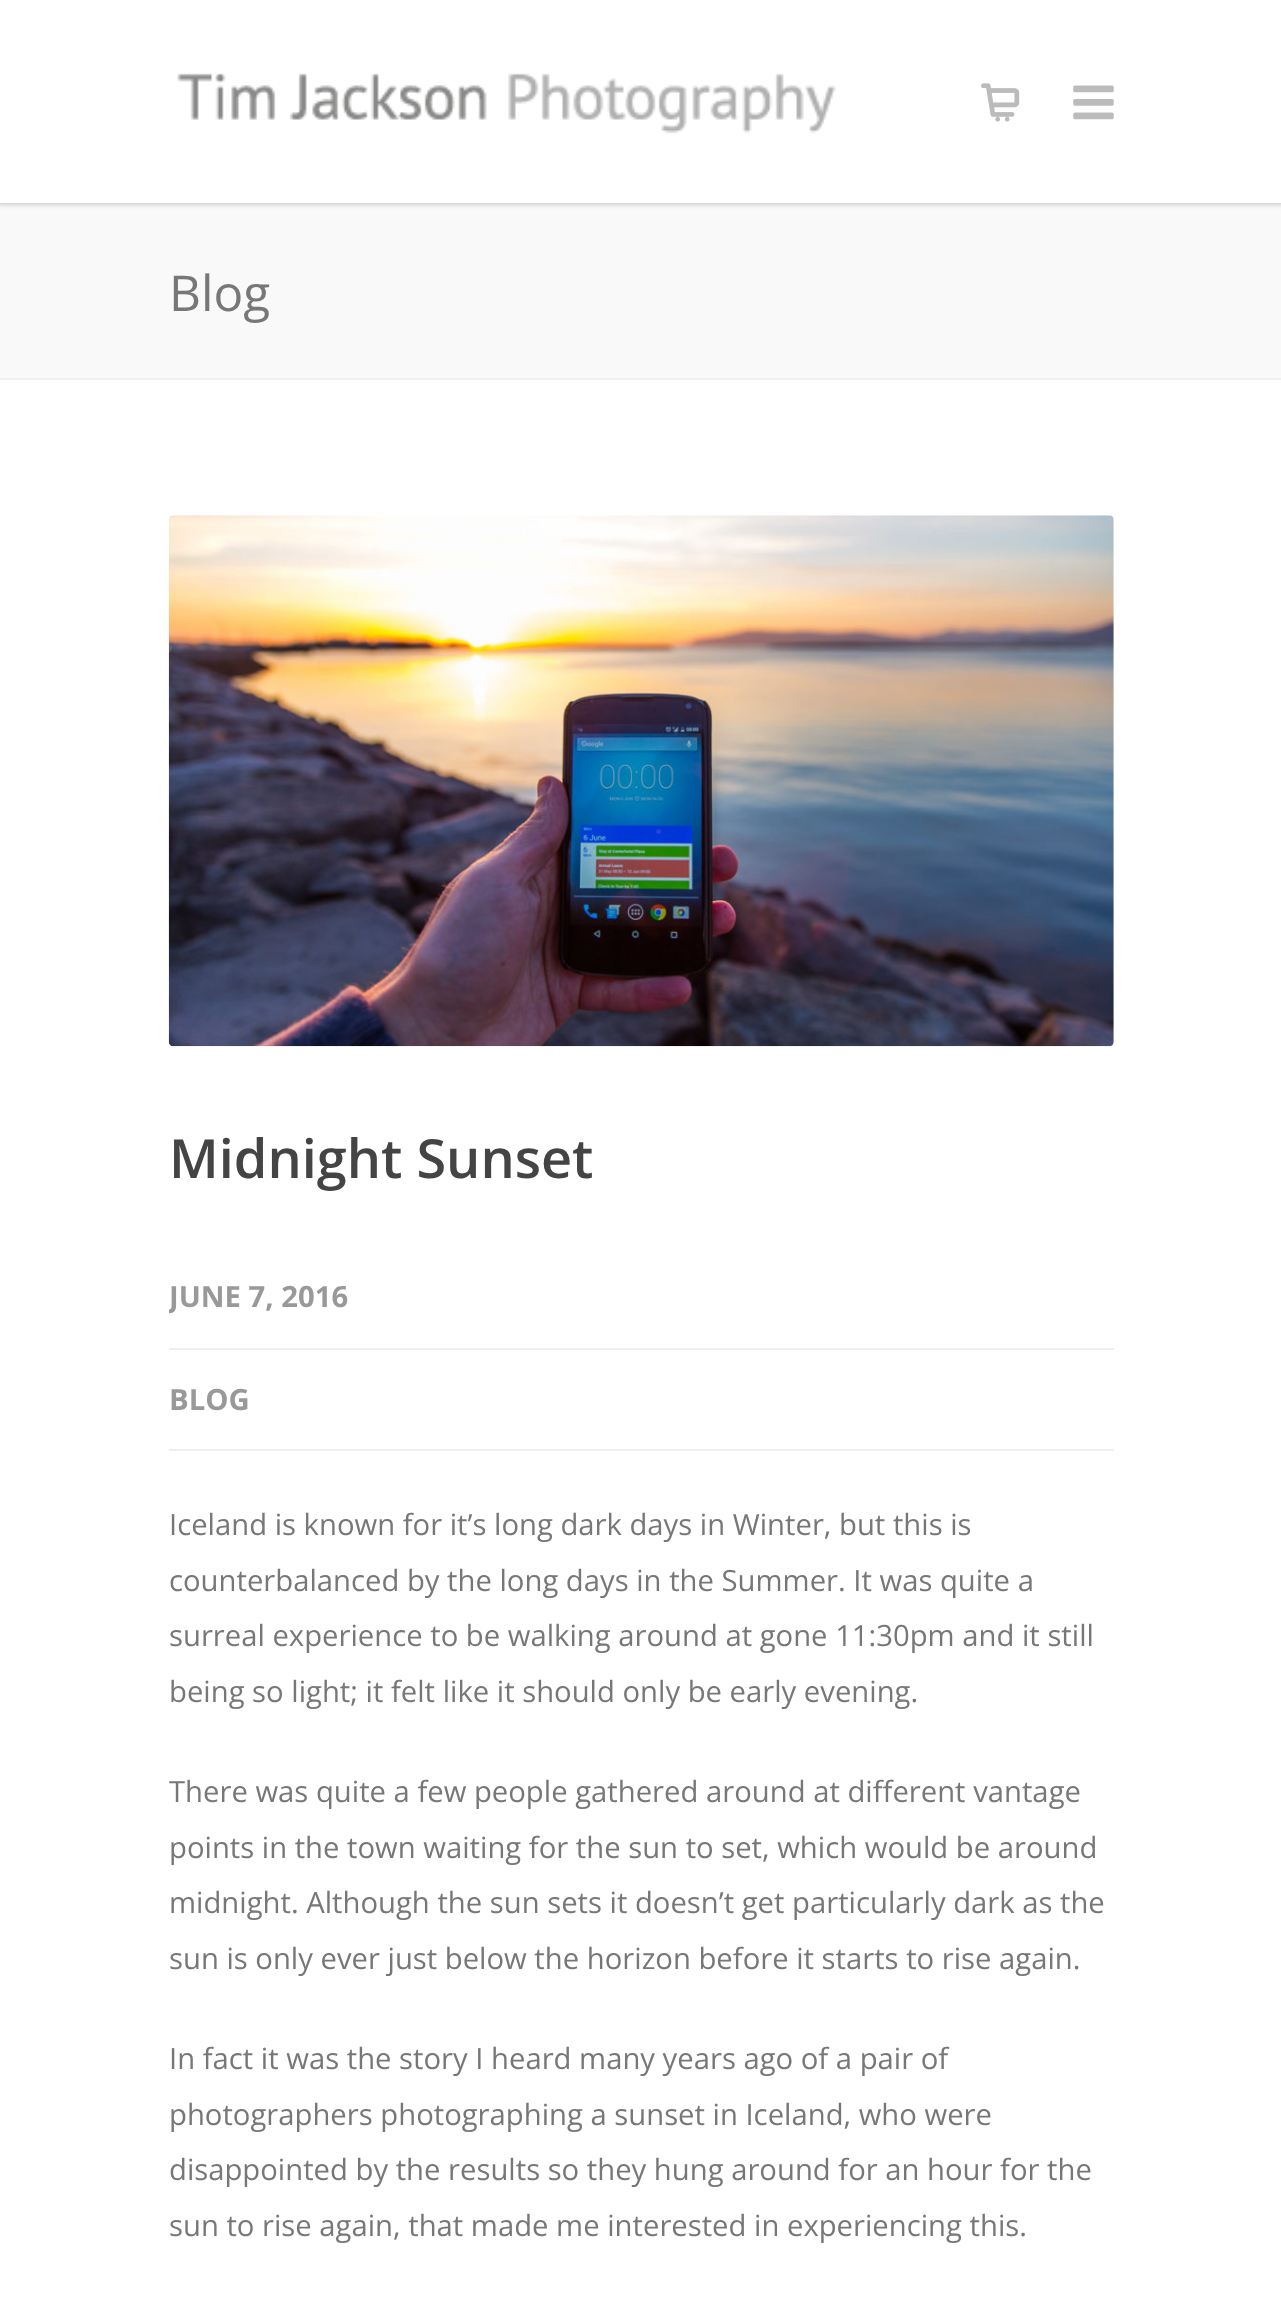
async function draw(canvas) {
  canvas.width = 1281
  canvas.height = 2318
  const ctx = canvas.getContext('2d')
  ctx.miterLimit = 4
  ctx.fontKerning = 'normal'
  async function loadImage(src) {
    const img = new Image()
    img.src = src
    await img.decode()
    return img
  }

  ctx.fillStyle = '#fff'
  ctx.fillRect(0, 0, 1281, 2318)
  ctx.fillStyle = '#f9f9f9'
  ctx.fillRect(0, 203, 1281, 175)
  ctx.fillStyle = '#00000029'
  ctx.filter = 'blur(2px)'
  ctx.beginPath()
  ctx.rect(-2, -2, 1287, 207)
  ctx.fill()
  ctx.filter = 'none'
  ctx.fillStyle = '#fff'
  ctx.fillRect(0, 0, 1281, 203)
  ctx.drawImage(await loadImage('image0.png'), 177, 73, 659, 61)
  ctx.drawImage(await loadImage('image1.png'), 981, 83, 39, 39)
  ctx.drawImage(await loadImage('image2.png'), 1073, 85, 41, 35)
  ctx.fillStyle = '#efefef'
  ctx.fillRect(0, 378, 1281, 2)
  ctx.font = '49.5px Open Sans'
  ctx.fillStyle = '#777'
  ctx.fillText('Blog', 169, 311)
  ctx.drawImage(await loadImage('image3.png'), 168, 515, 946, 532)
  ctx.font = '600 54px Open Sans'
  ctx.fillStyle = '#444'
  ctx.fillText('Midnight Sunset', 169, 1178)
  ctx.fillStyle = '#efefef'
  ctx.fillRect(169, 1348, 945, 2)
  ctx.save()
  ctx.beginPath()
  ctx.rect(169, 515, 945, 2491)
  ctx.clip()
  ctx.font = 'bold 29.25px Open Sans'
  ctx.fillStyle = '#999'
  ctx.fillText('JUNE 7, 2016', 169, 1307)
  ctx.restore()
  ctx.fillRect(169, 1449, 945, 2)
  ctx.font = 'bold 29.25px Open Sans'
  ctx.fillStyle = '#999'
  ctx.fillText('BLOG', 169, 1410)
  ctx.font = '29.25px Open Sans'
  ctx.fillStyle = '#777'
  ctx.fillText('Iceland is known for it’s long dark days in Winter, but this is', 169, 1535)
  ctx.fillText('counterbalanced by the long days in the Summer. It was quite a', 169, 1591)
  ctx.fillText('surreal experience to be walking around at gone 11:30pm and it still', 169, 1646)
  ctx.fillText('being so light; it felt like it should only be early evening.', 169, 1702)
  ctx.fillText('There was quite a few people gathered around at different vantage', 169, 1802)
  ctx.fillText('points in the town waiting for the sun to set, which would be around', 169, 1858)
  ctx.fillText('midnight. Although the sun sets it doesn’t get particularly dark as the', 169, 1913)
  ctx.fillText('sun is only ever just below the horizon before it starts to rise again.', 169, 1969)
  ctx.fillText('In fact it was the story I heard many years ago of a pair of', 169, 2069)
  ctx.fillText('photographers photographing a sunset in Iceland, who were', 169, 2125)
  ctx.fillText('disappointed by the results so they hung around for an hour for the', 169, 2180)
  ctx.fillText('sun to rise again, that made me interested in experiencing this.', 169, 2236)
}

draw(document.querySelector('canvas'))
